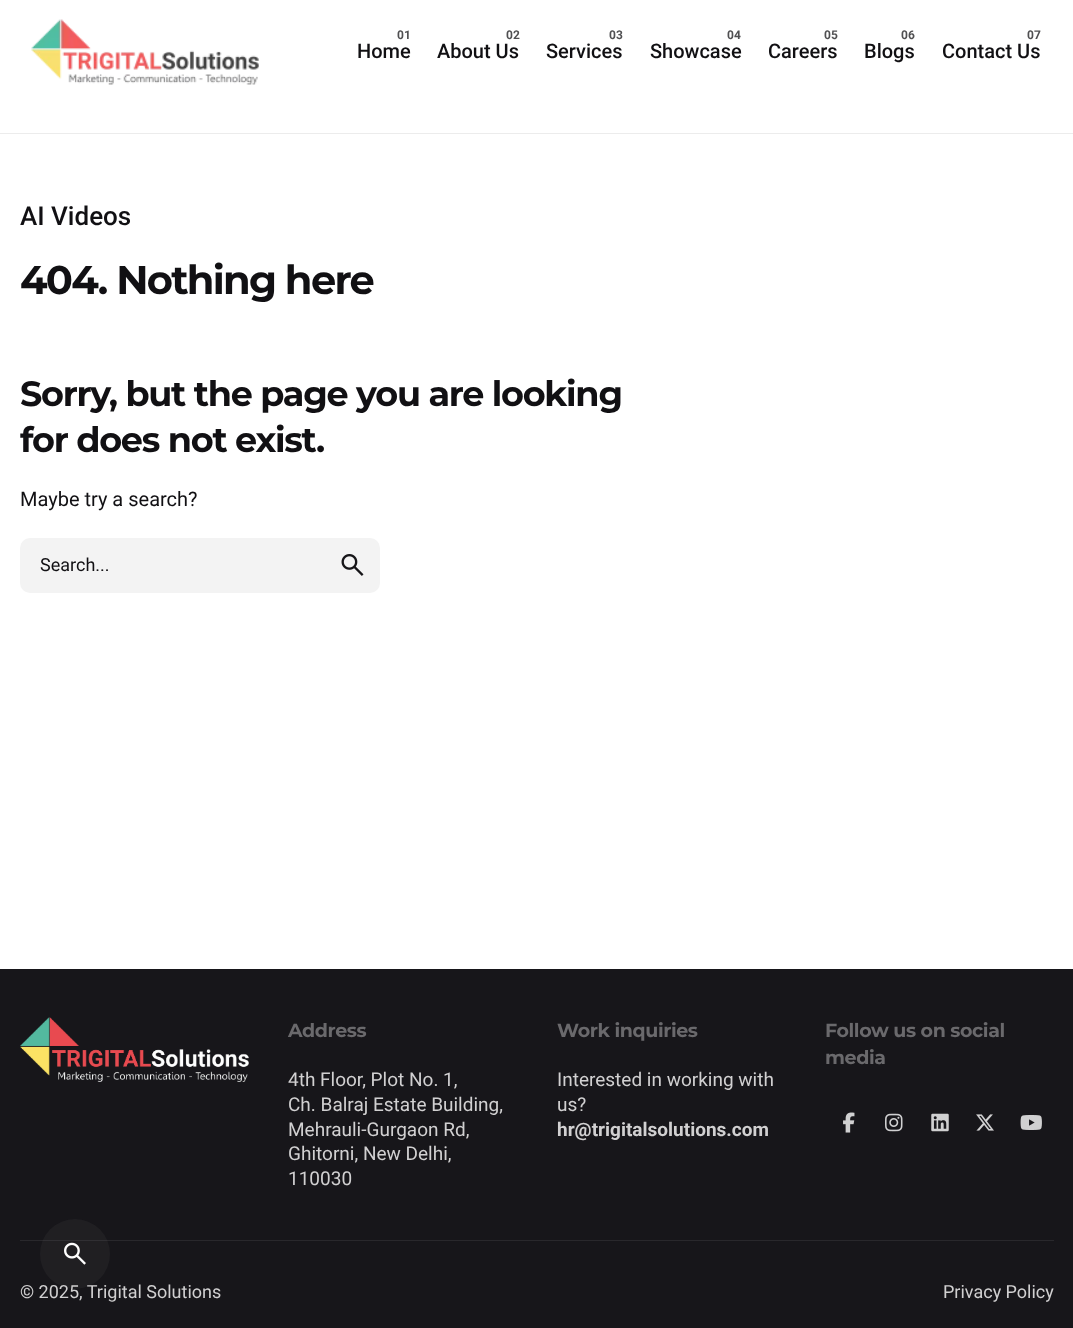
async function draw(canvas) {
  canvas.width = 1073
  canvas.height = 1328
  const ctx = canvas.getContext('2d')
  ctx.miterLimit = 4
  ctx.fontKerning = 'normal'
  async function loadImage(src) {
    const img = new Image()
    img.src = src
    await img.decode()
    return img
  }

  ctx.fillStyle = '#fff'
  ctx.fillRect(0, 0, 1073, 1328)
  ctx.fillStyle = '#ececec'
  ctx.fillRect(0, 133, 1073, 1)
  ctx.drawImage(await loadImage('image0.png'), 31, 19, 228, 66)
  ctx.font = 'bold 12px Roboto'
  ctx.fillStyle = '#505052'
  ctx.fillText('01', 397, 39)
  ctx.font = '500 20px Roboto'
  ctx.fillStyle = '#111013'
  ctx.fillText('Home', 357, 58)
  ctx.font = 'bold 12px Roboto'
  ctx.fillStyle = '#505052'
  ctx.fillText('02', 506, 39)
  ctx.font = '500 20px Roboto'
  ctx.fillStyle = '#111013'
  ctx.fillText('About Us', 437, 58)
  ctx.font = 'bold 12px Roboto'
  ctx.fillStyle = '#505052'
  ctx.fillText('03', 609, 39)
  ctx.font = '500 20px Roboto'
  ctx.fillStyle = '#111013'
  ctx.fillText('Services', 546, 58)
  ctx.font = 'bold 12px Roboto'
  ctx.fillStyle = '#505052'
  ctx.fillText('04', 727, 39)
  ctx.font = '500 20px Roboto'
  ctx.fillStyle = '#111013'
  ctx.fillText('Showcase', 650, 58)
  ctx.font = 'bold 12px Roboto'
  ctx.fillStyle = '#505052'
  ctx.fillText('05', 824, 39)
  ctx.font = '500 20px Roboto'
  ctx.fillStyle = '#111013'
  ctx.fillText('Careers', 768, 58)
  ctx.font = 'bold 12px Roboto'
  ctx.fillStyle = '#505052'
  ctx.fillText('06', 901, 39)
  ctx.font = '500 20px Roboto'
  ctx.fillStyle = '#111013'
  ctx.fillText('Blogs', 864, 58)
  ctx.font = 'bold 12px Roboto'
  ctx.fillStyle = '#505052'
  ctx.fillText('07', 1027, 39)
  ctx.font = '500 20px Roboto'
  ctx.fillStyle = '#111013'
  ctx.fillText('Contact Us', 942, 58)
  ctx.font = '500 26px Roboto'
  ctx.fillText('AI Videos', 20, 225)
  ctx.letterSpacing = '-1.75px'
  ctx.font = 'bold 40px Montserrat'
  ctx.fillText('404. Nothing here', 20, 294)
  ctx.letterSpacing = '-1.25px'
  ctx.font = 'bold 35px Montserrat'
  ctx.fillText('Sorry, but the page you are looking', 20, 406)
  ctx.fillText('for does not exist.', 20, 452)
  ctx.letterSpacing = '0px'
  ctx.font = '20px Roboto'
  ctx.fillText('Maybe try a search?', 20, 506)
  ctx.fillStyle = '#f3f3f3'
  ctx.beginPath()
  ctx.roundRect(20, 538, 360, 55, 10)
  ctx.fill()
  ctx.font = '18px Roboto'
  ctx.fillStyle = '#111013'
  ctx.fillText('Search...', 40, 571)
  ctx.drawImage(await loadImage('image1.png'), 341, 554, 23, 22)
  ctx.fillStyle = '#17161a'
  ctx.fillRect(0, 969, 1073, 359)
  ctx.drawImage(await loadImage('image2.png'), 20, 1017, 229, 65)
  ctx.letterSpacing = '-0.4px'
  ctx.font = 'bold 19px Montserrat'
  ctx.fillStyle = '#6a696c'
  ctx.fillText('Address', 288, 1037)
  ctx.letterSpacing = '0px'
  ctx.font = '19px Roboto'
  ctx.fillStyle = '#d1d0d1'
  ctx.fillText('4th Floor, Plot No. 1,', 288, 1086)
  ctx.fillText('Ch. Balraj Estate Building,', 288, 1111)
  ctx.fillText('Mehrauli-Gurgaon Rd,', 288, 1136)
  ctx.fillText('Ghitorni, New Delhi,', 288, 1160)
  ctx.fillText('110030', 288, 1185)
  ctx.letterSpacing = '-0.4px'
  ctx.font = 'bold 19px Montserrat'
  ctx.fillStyle = '#6a696c'
  ctx.fillText('Work inquiries', 557, 1037)
  ctx.letterSpacing = '0px'
  ctx.font = '19px Roboto'
  ctx.fillStyle = '#d1d0d1'
  ctx.fillText('Interested in working with', 557, 1086)
  ctx.fillText('us?', 557, 1111)
  ctx.font = 'bold 19px Roboto'
  ctx.fillText('hr@trigitalsolutions.com', 557, 1136)
  ctx.letterSpacing = '-0.4px'
  ctx.font = 'bold 19px Montserrat'
  ctx.fillStyle = '#6a696c'
  ctx.fillText('Follow us on social', 825, 1037)
  ctx.fillText('media', 825, 1064)
  ctx.drawImage(await loadImage('image3.png'), 843, 1112, 12, 21)
  ctx.drawImage(await loadImage('image4.png'), 885, 1113, 18, 19)
  ctx.drawImage(await loadImage('image5.png'), 931, 1113, 18, 19)
  ctx.drawImage(await loadImage('image6.png'), 976, 1114, 18, 17)
  ctx.drawImage(await loadImage('image7.png'), 1020, 1115, 22, 15)
  ctx.fillStyle = '#29282c'
  ctx.fillRect(20, 1240, 1034, 1)
  ctx.letterSpacing = '0px'
  ctx.font = '18px Roboto'
  ctx.fillStyle = '#d1d0d1'
  ctx.fillText('© 2025, Trigital Solutions', 20, 1298)
  ctx.fillText('Privacy Policy', 943, 1298)
  ctx.fillStyle = '#88888914'
  ctx.beginPath()
  ctx.arc(75, 1254, 35, 0, 2 * Math.PI)
  ctx.fill()
  ctx.drawImage(await loadImage('image8.png'), 64, 1242, 22, 23)
}

draw(document.querySelector('canvas'))
